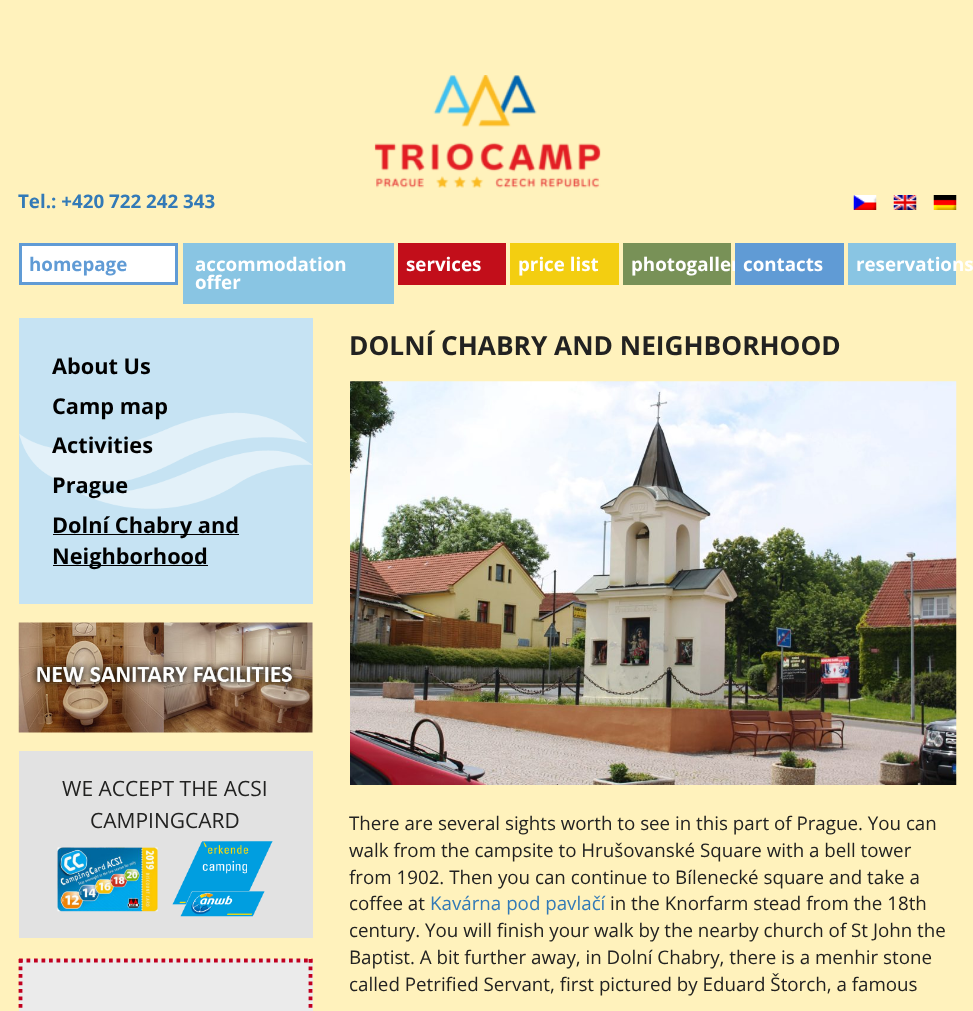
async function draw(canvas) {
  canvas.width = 973
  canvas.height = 1011
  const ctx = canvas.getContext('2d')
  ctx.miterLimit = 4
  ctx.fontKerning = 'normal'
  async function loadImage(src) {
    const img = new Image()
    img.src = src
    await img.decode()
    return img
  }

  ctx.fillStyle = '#fff2bc'
  ctx.fillRect(0, 0, 973, 1011)
  ctx.drawImage(await loadImage('image0.png'), 374, 75, 227, 113)
  ctx.font = 'bold 18.75px Open Sans'
  ctx.fillStyle = '#337ab7'
  ctx.fillText('Tel.: +420 722 242 343', 18, 208)
  ctx.drawImage(await loadImage('image1.png'), 853, 195, 24, 15)
  ctx.drawImage(await loadImage('image2.png'), 893, 195, 24, 15)
  ctx.drawImage(await loadImage('image3.png'), 933, 195, 24, 15)
  ctx.fillStyle = '#fff'
  ctx.beginPath()
  ctx.rect(20.5, 244.5, 156, 39)
  ctx.fill()
  ctx.strokeStyle = '#609bd5'
  ctx.lineWidth = 3
  ctx.stroke()
  ctx.fillStyle = '#609bd5'
  ctx.fillText('homepage', 29, 271)
  ctx.fillStyle = '#89c5e3'
  ctx.fillRect(183, 243, 211, 61)
  ctx.fillStyle = '#fff'
  ctx.fillText('accommodation', 195, 271)
  ctx.fillText('offer', 195, 289)
  ctx.fillStyle = '#c20e1a'
  ctx.fillRect(398, 243, 108, 42)
  ctx.fillStyle = '#fff'
  ctx.fillText('services', 406, 271)
  ctx.fillStyle = '#f3ce11'
  ctx.fillRect(510, 243, 109, 42)
  ctx.fillStyle = '#fff'
  ctx.fillText('price list', 518, 271)
  ctx.fillStyle = '#789157'
  ctx.fillRect(623, 243, 108, 42)
  ctx.fillStyle = '#fff'
  ctx.fillText('photogaller', 631, 271)
  ctx.fillStyle = '#609bd5'
  ctx.fillRect(735, 243, 109, 42)
  ctx.fillStyle = '#fff'
  ctx.fillText('contacts', 743, 271)
  ctx.fillStyle = '#89c5e3'
  ctx.fillRect(848, 243, 108, 42)
  ctx.fillStyle = '#fff'
  ctx.fillText('reservations', 856, 271)
  ctx.fillStyle = '#c6e3f3'
  ctx.fillRect(19, 318, 294, 286)
  ctx.drawImage(await loadImage('image4.png'), 19, 412, 293, 97)
  ctx.font = 'bold 21.75px Open Sans'
  ctx.fillStyle = '#000'
  ctx.fillText('About Us', 52, 374)
  ctx.fillText('Camp map', 52, 414)
  ctx.fillText('Activities', 52, 453)
  ctx.fillText('Prague', 52, 493)
  ctx.fillRect(53, 534, 186, 1)
  ctx.fillText('Dolní Chabry and', 52, 533)
  ctx.fillRect(53, 565, 155, 1)
  ctx.fillText('Neighborhood', 52, 564)
  ctx.drawImage(await loadImage('image5.png'), 18, 622, 295, 111)
  ctx.fillStyle = '#e2e2e2'
  ctx.fillRect(19, 751, 294, 187)
  ctx.font = '21px Open Sans'
  ctx.fillStyle = '#222221'
  ctx.fillText('WE ACCEPT THE ACSI', 62, 796)
  ctx.fillText('CAMPINGCARD', 90, 828)
  ctx.drawImage(await loadImage('image6.png'), 57, 847, 101, 65)
  ctx.drawImage(await loadImage('image7.png'), 172, 841, 101, 76)
  ctx.fillStyle = '#ebebeb'
  ctx.fillRect(19, 959, 294, 52)
  ctx.beginPath()
  ctx.moveTo(19, 960.5)
  ctx.lineTo(312.5, 960.5)
  ctx.strokeStyle = '#c1001f'
  ctx.lineWidth = 3.8
  ctx.setLineDash([3.75, 3.75])
  ctx.stroke()
  ctx.beginPath()
  ctx.moveTo(310.5, 959)
  ctx.lineTo(310.5, 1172.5)
  ctx.stroke()
  ctx.beginPath()
  ctx.moveTo(20.5, 959)
  ctx.lineTo(20.5, 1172.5)
  ctx.stroke()
  ctx.font = 'bold 26.25px Open Sans'
  ctx.fillStyle = '#222221'
  ctx.fillText('DOLNÍ CHABRY AND NEIGHBORHOOD', 349, 355)
  ctx.drawImage(await loadImage('image8.png'), 350, 381, 607, 404)
  ctx.font = '18.75px Open Sans'
  ctx.fillText('There are several sights worth to see in this part of Prague. You can', 349, 830)
  ctx.fillText('walk from the campsite to Hrušovanské Square with a bell tower', 349, 857)
  ctx.fillText('from 1902. Then you can continue to Bílenecké square and take a', 349, 884)
  ctx.fillText('coffee at', 349, 910)
  ctx.fillStyle = '#337ab7'
  ctx.fillText('Kavárna pod pavlačí', 430, 910)
  ctx.fillStyle = '#222221'
  ctx.fillText('in the Knorfarm stead from the 18th', 610, 910)
  ctx.fillText('century. You will finish your walk by the nearby church of St John the', 349, 937)
  ctx.fillText('Baptist. A bit further away, in Dolní Chabry, there is a menhir stone', 349, 964)
  ctx.fillText('called Petrified Servant, first pictured by Eduard Štorch, a famous', 349, 991)
}

draw(document.querySelector('canvas'))
